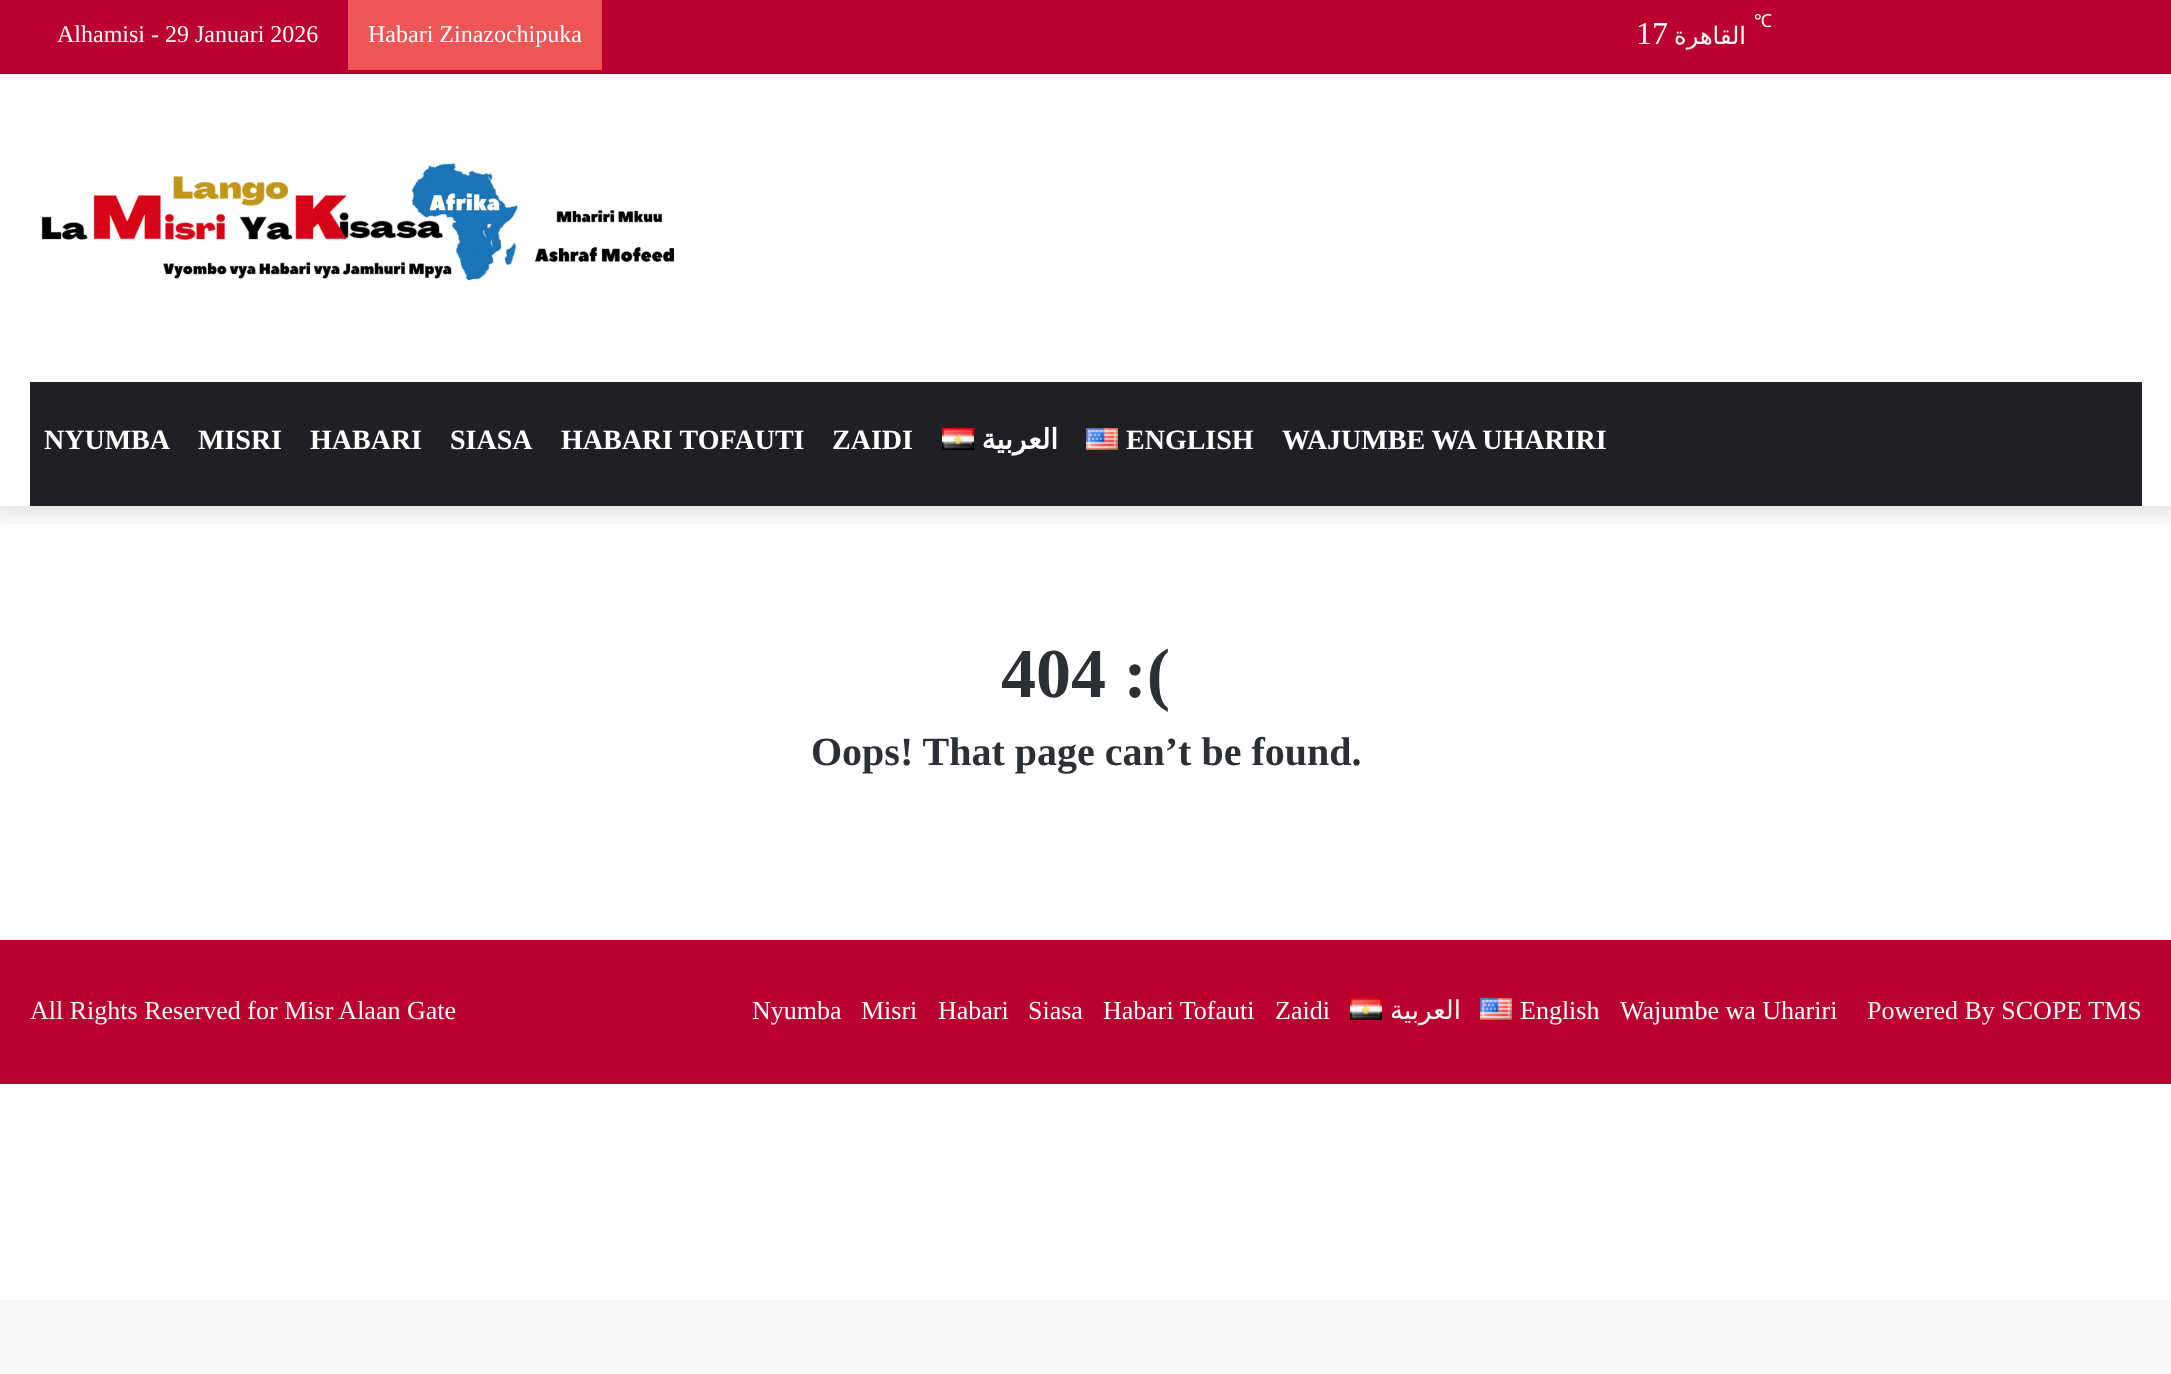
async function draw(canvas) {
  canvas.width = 2171
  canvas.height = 1374
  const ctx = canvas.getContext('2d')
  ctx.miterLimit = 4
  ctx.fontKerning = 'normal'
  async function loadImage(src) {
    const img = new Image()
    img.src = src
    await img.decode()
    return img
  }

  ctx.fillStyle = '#f7f7f7'
  ctx.fillRect(0, 0, 2171, 1374)
  ctx.fillStyle = '#fff'
  ctx.fillRect(0, 74, 2171, 1226)
  ctx.save()
  ctx.beginPath()
  ctx.rect(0, 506, 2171, 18)
  ctx.clip()
  ctx.fillStyle = '#0000001a'
  ctx.filter = 'blur(10px)'
  ctx.beginPath()
  ctx.rect(-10, -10, 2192, 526)
  ctx.fill()
  ctx.filter = 'none'
  ctx.restore()
  ctx.fillStyle = '#bb002f'
  ctx.fillRect(0, 0, 2171, 72)
  ctx.fillStyle = '#a8002a'
  ctx.fillRect(0, 72, 2171, 2)
  ctx.font = '24px Liberation Serif'
  ctx.fillStyle = '#fff'
  ctx.fillText('Alhamisi - 29 Januari 2026', 57, 42)
  ctx.fillStyle = '#f05555'
  ctx.fillRect(348, 0, 254, 70)
  ctx.fillStyle = '#fff'
  ctx.fillText('Habari Zinazochipuka', 368, 42)
  ctx.font = '32px Liberation Serif'
  ctx.fillText('17', 1636, 44)
  ctx.direction = 'rtl'
  ctx.font = '24px DejaVu Sans'
  ctx.fillText('القاهرة', 1746, 44)
  ctx.direction = 'ltr'
  ctx.font = '18px Noto Sans'
  ctx.fillText('℃', 1754, 27)
  ctx.drawImage(await loadImage('image0.png'), 41, 162, 634, 119)
  ctx.fillStyle = '#1f2024'
  ctx.fillRect(30, 382, 2112, 124)
  ctx.font = 'bold 28px Liberation Serif'
  ctx.fillStyle = '#fff'
  ctx.fillText('NYUMBA', 44, 449)
  ctx.fillText('MISRI', 198, 449)
  ctx.fillText('HABARI', 310, 449)
  ctx.fillText('SIASA', 450, 449)
  ctx.fillText('HABARI TOFAUTI', 561, 449)
  ctx.fillText('ZAIDI', 832, 449)
  ctx.drawImage(await loadImage('image1.png'), 942, 428, 32, 22)
  ctx.direction = 'rtl'
  ctx.font = 'bold 28px DejaVu Sans'
  ctx.fillText('العربية', 1058, 449)
  ctx.drawImage(await loadImage('image2.png'), 1086, 428, 32, 22)
  ctx.direction = 'ltr'
  ctx.font = 'bold 28px Liberation Serif'
  ctx.fillText('ENGLISH', 1126, 449)
  ctx.fillText('WAJUMBE WA UHARIRI', 1282, 449)
  ctx.font = 'bold 70px Liberation Serif'
  ctx.fillStyle = '#2c2f34'
  ctx.fillText('404 :(', 1001, 697)
  ctx.font = 'bold 40px Liberation Serif'
  ctx.fillText('Oops! That page can’t be found.', 811, 765)
  ctx.fillStyle = '#bb002f'
  ctx.fillRect(0, 940, 2171, 144)
  ctx.font = '26px Liberation Serif'
  ctx.fillStyle = '#f7f7f7'
  ctx.fillText('All Rights Reserved for Misr Alaan Gate', 30, 1019)
  ctx.fillStyle = '#fff'
  ctx.fillText('Nyumba', 752, 1019)
  ctx.fillText('Misri', 861, 1019)
  ctx.fillText('Habari', 938, 1019)
  ctx.fillText('Siasa', 1028, 1019)
  ctx.fillText('Habari Tofauti', 1103, 1019)
  ctx.fillText('Zaidi', 1275, 1019)
  ctx.drawImage(await loadImage('image1.png'), 1350, 998, 32, 22)
  ctx.direction = 'rtl'
  ctx.font = '26px DejaVu Sans'
  ctx.fillText('العربية', 1461, 1019)
  ctx.drawImage(await loadImage('image2.png'), 1480, 998, 32, 22)
  ctx.direction = 'ltr'
  ctx.font = '26px Liberation Serif'
  ctx.fillText('English', 1520, 1019)
  ctx.fillText('Wajumbe wa Uhariri', 1620, 1019)
  ctx.fillStyle = '#f7f7f7'
  ctx.fillText('Powered By SCOPE TMS', 1867, 1019)
}

draw(document.querySelector('canvas'))
